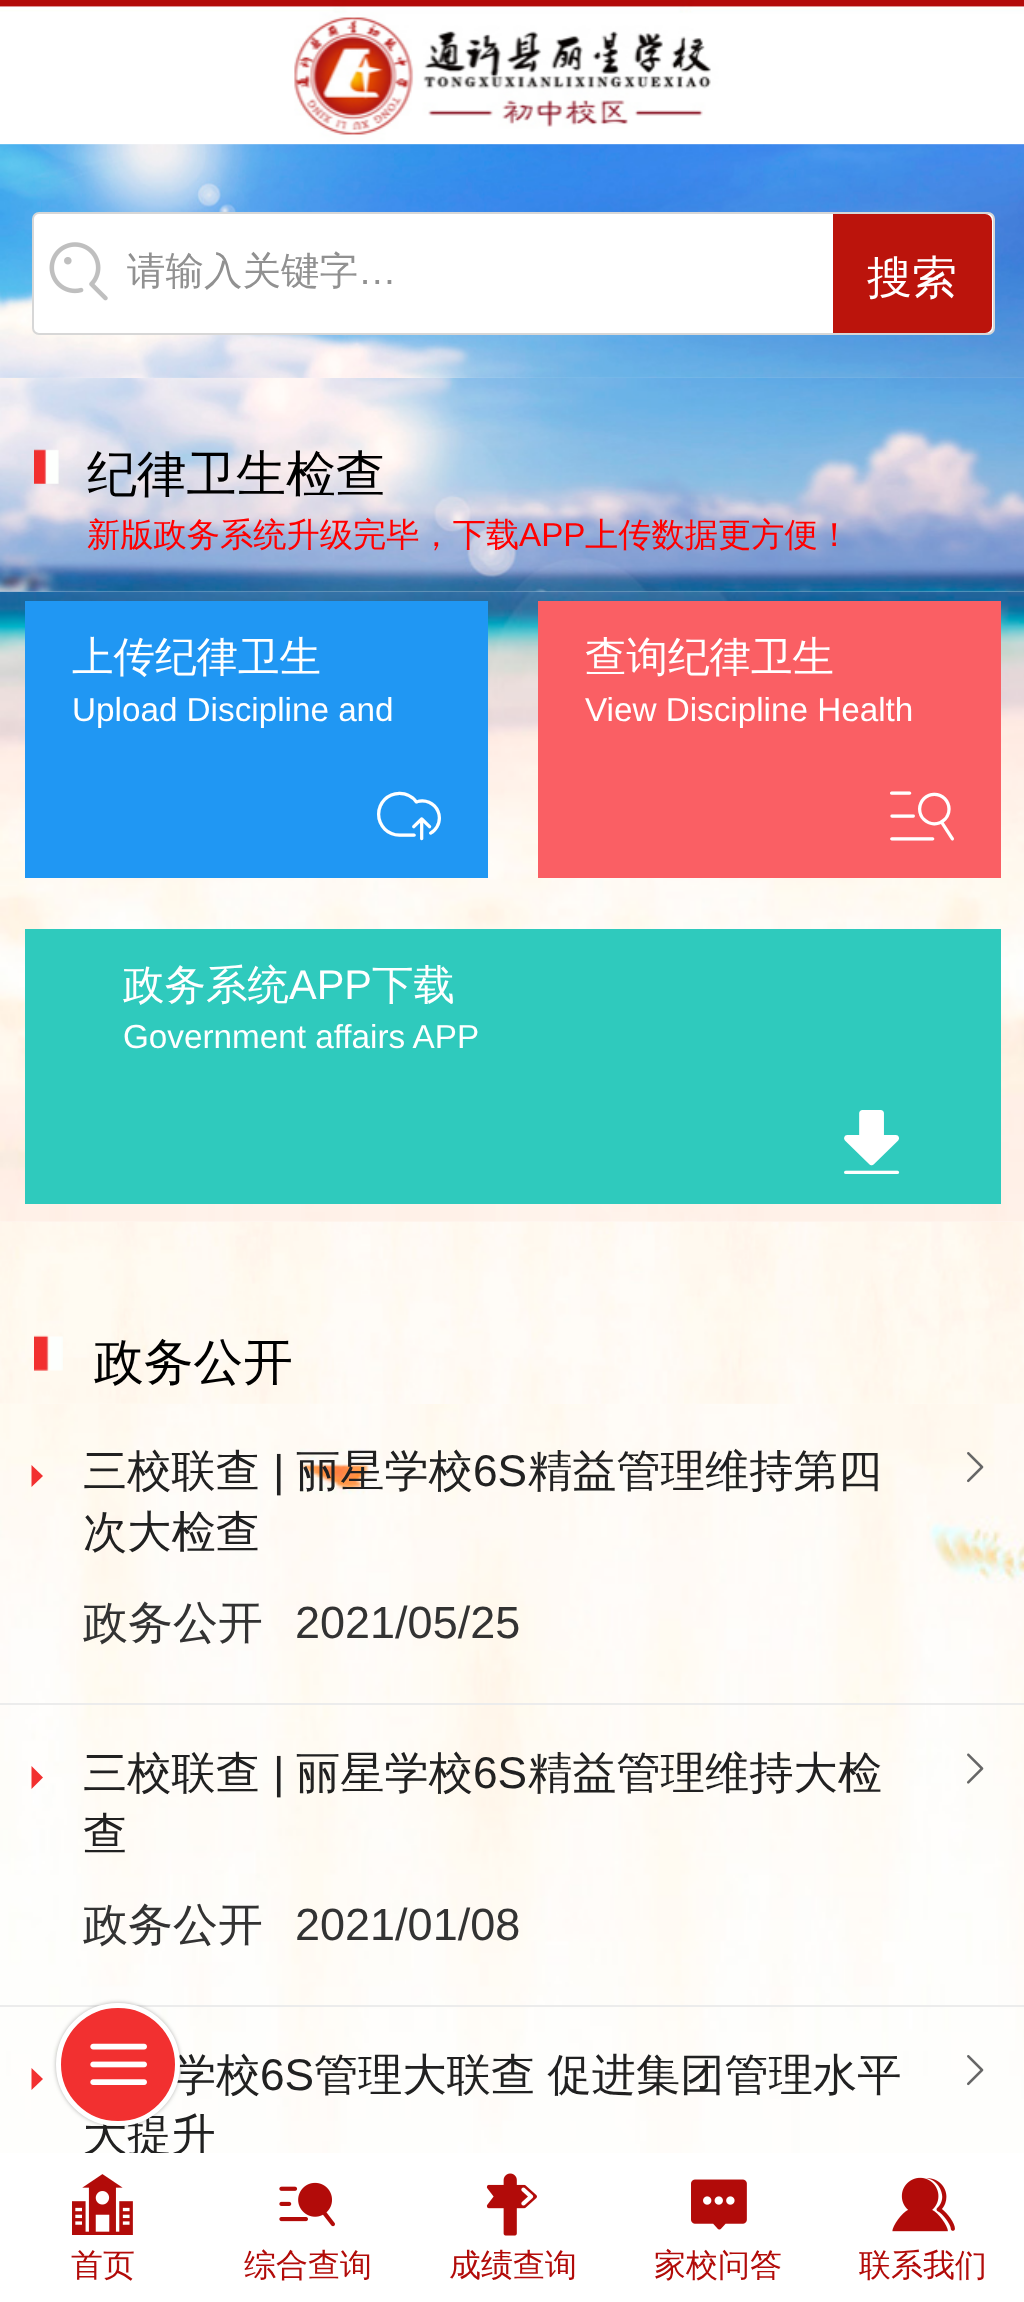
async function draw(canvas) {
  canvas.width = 1024
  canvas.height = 2302
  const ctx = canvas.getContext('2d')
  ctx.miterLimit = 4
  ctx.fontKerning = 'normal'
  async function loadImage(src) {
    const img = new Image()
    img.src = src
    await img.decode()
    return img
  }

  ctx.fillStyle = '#fff'
  ctx.fillRect(0, 0, 1024, 2302)
  ctx.drawImage(await loadImage('image2.png'), 0, 144, 1024, 234)
  ctx.drawImage(await loadImage('image0.png'), 0, 0, 1024, 145)
  ctx.drawImage(await loadImage('image9.png'), 0, 1404, 1024, 749)
  ctx.fillStyle = '#ececec'
  ctx.fillRect(0, 2005, 1024, 2)
  ctx.fillStyle = '#0000004d'
  ctx.filter = 'blur(2px)'
  ctx.beginPath()
  ctx.roundRect(56, 2003, 124, 123, 61.5)
  ctx.fill()
  ctx.filter = 'none'
  ctx.font = '500 44.25px WenQuanYi Zen Hei'
  ctx.fillStyle = '#212121'
  ctx.fillText('学校', 172, 2090)
  ctx.fillText('大提升', 83, 2150)
  ctx.fillStyle = '#f23030'
  ctx.beginPath()
  ctx.roundRect(58.5, 2005.5, 119, 118, 59)
  ctx.fill()
  ctx.strokeStyle = '#fff'
  ctx.lineWidth = 5
  ctx.stroke()
  ctx.drawImage(await loadImage('image1.png'), 90, 2043, 57, 42)
  ctx.fillStyle = '#fff'
  ctx.beginPath()
  ctx.roundRect(33, 213, 961, 121, 6)
  ctx.fill()
  ctx.strokeStyle = '#d7d7d7'
  ctx.lineWidth = 2
  ctx.stroke()
  ctx.drawImage(await loadImage('image3.png'), 49, 242, 59, 59)
  ctx.font = '500 38.5px WenQuanYi Zen Hei'
  ctx.fillStyle = '#919191'
  ctx.fillText('请输入关键字', 127, 284)
  ctx.font = '38.5px Liberation Sans'
  ctx.fillText('…', 358, 284)
  ctx.fillStyle = '#bb140c'
  ctx.beginPath()
  ctx.roundRect(833, 214, 159, 119, [0, 7, 7, 0])
  ctx.fill()
  ctx.font = '500 45px WenQuanYi Zen Hei'
  ctx.fillStyle = '#fff'
  ctx.fillText('搜索', 867, 293)
  ctx.drawImage(await loadImage('image4.png'), 0, 378, 1024, 214)
  ctx.drawImage(await loadImage('image5.png'), 34, 449, 25, 35)
  ctx.font = '500 49.75px WenQuanYi Zen Hei'
  ctx.fillStyle = '#000'
  ctx.fillText('纪律卫生检查', 87, 491)
  ctx.font = '500 33.25px WenQuanYi Zen Hei'
  ctx.fillStyle = '#f00'
  ctx.fillText('新版政务系统升级完毕，下载', 87, 546)
  ctx.font = '33.25px Liberation Sans'
  ctx.fillText('APP', 519, 546)
  ctx.font = '500 33.25px WenQuanYi Zen Hei'
  ctx.fillText('上传数据更方便！', 585, 546)
  ctx.drawImage(await loadImage('image6.png'), 0, 591, 1024, 631)
  ctx.fillStyle = '#2097f3'
  ctx.fillRect(25, 601, 463, 277)
  ctx.font = '500 41.5px WenQuanYi Zen Hei'
  ctx.fillStyle = '#fff'
  ctx.fillText('上传纪律卫生', 72, 671)
  ctx.font = '33.25px Liberation Sans'
  ctx.fillText('Upload Discipline and', 72, 721)
  ctx.font = '64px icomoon'
  ctx.fillText('򠅶', 377, 844)
  ctx.fillStyle = '#fa5f64'
  ctx.fillRect(538, 601, 463, 277)
  ctx.font = '500 41.5px WenQuanYi Zen Hei'
  ctx.fillStyle = '#fff'
  ctx.fillText('查询纪律卫生', 585, 671)
  ctx.font = '33.25px Liberation Sans'
  ctx.fillText('View Discipline Health', 585, 721)
  ctx.font = '64px icomoon'
  ctx.fillText('򠄐', 890, 844)
  ctx.fillStyle = '#2fcabd'
  ctx.fillRect(25, 929, 976, 275)
  ctx.font = '500 41.5px WenQuanYi Zen Hei'
  ctx.fillStyle = '#fff'
  ctx.fillText('政务系统', 123, 999)
  ctx.font = '41.5px Liberation Sans'
  ctx.fillText('APP', 289, 999)
  ctx.font = '500 41.5px WenQuanYi Zen Hei'
  ctx.fillText('下载', 372, 999)
  ctx.font = '33.25px Liberation Sans'
  ctx.fillText('Government affairs APP', 123, 1048)
  ctx.font = '64px icomoon'
  ctx.fillText('򠉑', 839, 1170)
  ctx.drawImage(await loadImage('image7.png'), 0, 1222, 1024, 182)
  ctx.drawImage(await loadImage('image8.png'), 34, 1335, 29, 36)
  ctx.font = '500 49.75px WenQuanYi Zen Hei'
  ctx.fillStyle = '#000'
  ctx.fillText('政务公开', 94, 1379)
  ctx.fillStyle = '#f23030'
  ctx.beginPath()
  ctx.moveTo(31.5, 1487)
  ctx.lineTo(31.5, 1465)
  ctx.lineTo(43, 1476)
  ctx.closePath()
  ctx.fill()
  ctx.font = '500 44.25px WenQuanYi Zen Hei'
  ctx.fillStyle = '#212121'
  ctx.fillText('三校联查', 83, 1486)
  ctx.font = '44.25px Liberation Sans'
  ctx.fillText('|', 273, 1486)
  ctx.font = '500 44.25px WenQuanYi Zen Hei'
  ctx.fillText('丽星学校', 296, 1486)
  ctx.font = '44.25px Liberation Sans'
  ctx.fillText('6S', 473, 1486)
  ctx.font = '500 44.25px WenQuanYi Zen Hei'
  ctx.fillText('精益管理维持第四', 528, 1486)
  ctx.fillText('次大检查', 83, 1547)
  ctx.drawImage(await loadImage('image10.png'), 967, 1452, 17, 31)
  ctx.font = '500 45px WenQuanYi Zen Hei'
  ctx.fillStyle = '#333'
  ctx.fillText('政务公开', 83, 1638)
  ctx.font = '45px Liberation Sans'
  ctx.fillText('2021/05/25', 295, 1638)
  ctx.fillStyle = '#ececec'
  ctx.fillRect(0, 1703, 1024, 2)
  ctx.fillStyle = '#f23030'
  ctx.beginPath()
  ctx.moveTo(31.5, 1789)
  ctx.lineTo(31.5, 1766)
  ctx.lineTo(43, 1777.5)
  ctx.closePath()
  ctx.fill()
  ctx.font = '500 44.25px WenQuanYi Zen Hei'
  ctx.fillStyle = '#212121'
  ctx.fillText('三校联查', 83, 1788)
  ctx.font = '44.25px Liberation Sans'
  ctx.fillText('|', 273, 1788)
  ctx.font = '500 44.25px WenQuanYi Zen Hei'
  ctx.fillText('丽星学校', 296, 1788)
  ctx.font = '44.25px Liberation Sans'
  ctx.fillText('6S', 473, 1788)
  ctx.font = '500 44.25px WenQuanYi Zen Hei'
  ctx.fillText('精益管理维持大检', 528, 1788)
  ctx.fillText('查', 83, 1849)
  ctx.drawImage(await loadImage('image11.png'), 967, 1753, 17, 31)
  ctx.font = '500 45px WenQuanYi Zen Hei'
  ctx.fillStyle = '#333'
  ctx.fillText('政务公开', 83, 1940)
  ctx.font = '45px Liberation Sans'
  ctx.fillText('2021/01/08', 295, 1940)
  ctx.fillStyle = '#f23030'
  ctx.beginPath()
  ctx.moveTo(31.5, 2090)
  ctx.lineTo(31.5, 2068)
  ctx.lineTo(43, 2079)
  ctx.closePath()
  ctx.fill()
  ctx.font = '44.25px Liberation Sans'
  ctx.fillStyle = '#212121'
  ctx.fillText('6S', 260, 2090)
  ctx.wordSpacing = '-1px'
  ctx.font = '500 44.25px WenQuanYi Zen Hei'
  ctx.fillText('管理大联查 促进集团管理水平', 314, 2090)
  ctx.drawImage(await loadImage('image12.png'), 967, 2055, 17, 31)
  ctx.fillStyle = '#fff'
  ctx.fillRect(85, 2153, 120, 4)
  ctx.drawImage(await loadImage('image13.png'), 72, 2174, 61, 61)
  ctx.wordSpacing = '0px'
  ctx.font = '500 32px WenQuanYi Zen Hei'
  ctx.fillStyle = '#b20b09'
  ctx.fillText('首页', 71, 2276)
  ctx.drawImage(await loadImage('image14.png'), 279, 2182, 56, 45)
  ctx.fillText('综合查询', 244, 2276)
  ctx.drawImage(await loadImage('image15.png'), 486, 2173, 51, 63)
  ctx.fillText('成绩查询', 449, 2276)
  ctx.drawImage(await loadImage('image16.png'), 691, 2179, 56, 51)
  ctx.fillText('家校问答', 654, 2276)
  ctx.drawImage(await loadImage('image17.png'), 892, 2177, 63, 55)
  ctx.fillText('联系我们', 859, 2276)
}

draw(document.querySelector('canvas'))
